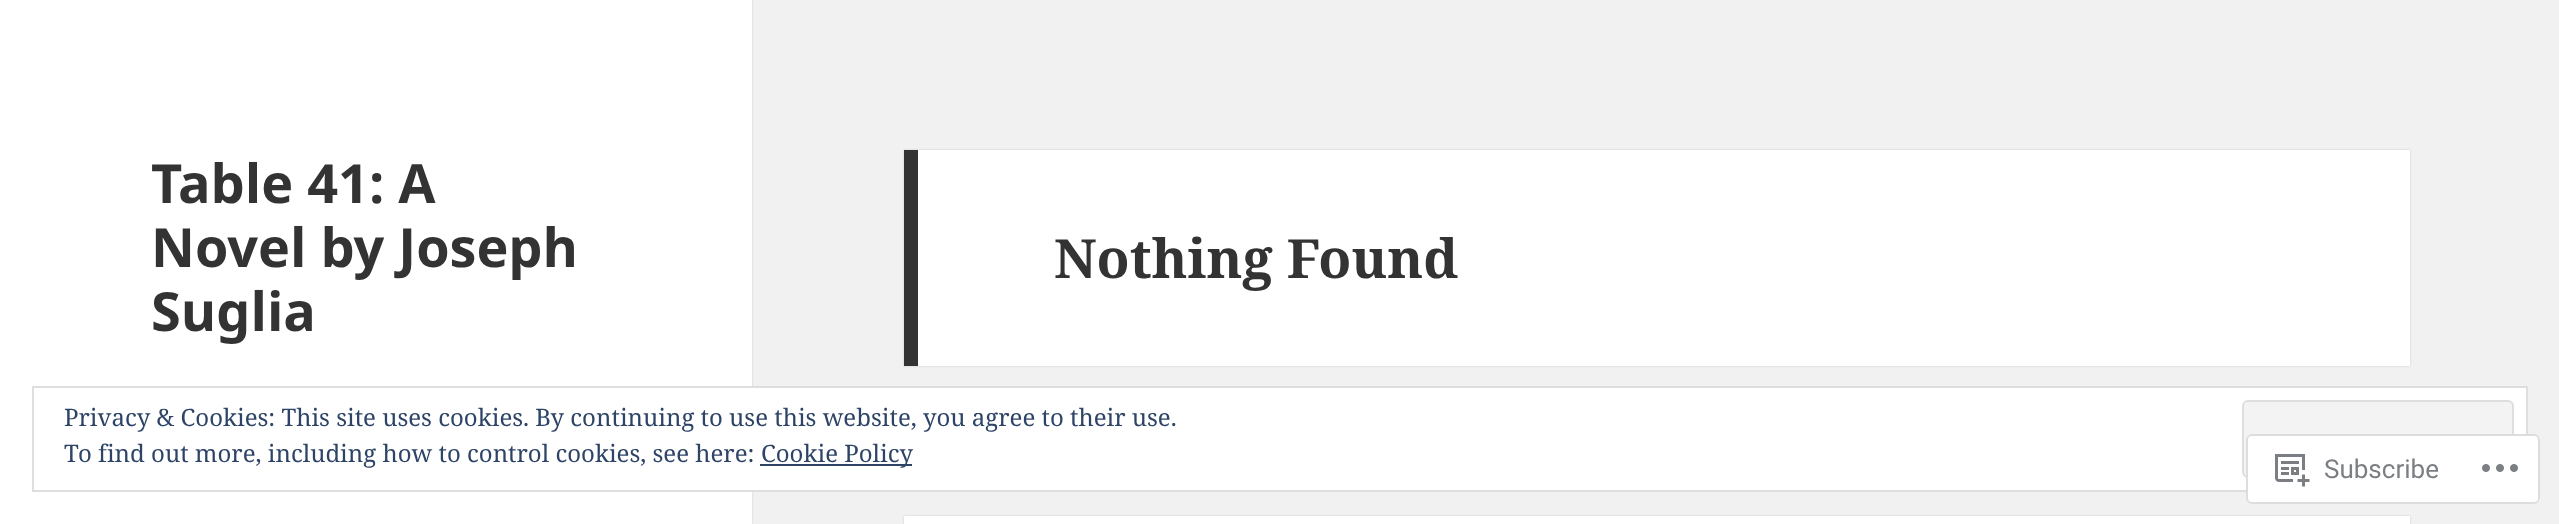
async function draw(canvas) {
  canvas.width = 2559
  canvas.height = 524
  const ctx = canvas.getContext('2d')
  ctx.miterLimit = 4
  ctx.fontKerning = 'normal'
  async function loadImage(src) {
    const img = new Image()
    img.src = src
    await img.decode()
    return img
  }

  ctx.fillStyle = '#f1f1f1'
  ctx.fillRect(0, 0, 2559, 524)
  ctx.fillStyle = '#00000026'
  ctx.filter = 'blur(1px)'
  ctx.beginPath()
  ctx.rect(0, 0, 752, 524)
  ctx.fill()
  ctx.filter = 'none'
  ctx.fillStyle = '#fff'
  ctx.fillRect(0, 0, 752, 524)
  ctx.font = 'bold 54px Noto Sans'
  ctx.fillStyle = '#333'
  ctx.fillText('Table 41: A', 151, 203)
  ctx.fillText('Novel by Joseph', 151, 267)
  ctx.fillText('Suglia', 151, 331)
  ctx.fillStyle = '#00000026'
  ctx.filter = 'blur(1px)'
  ctx.beginPath()
  ctx.rect(904, 150, 1506, 216)
  ctx.fill()
  ctx.filter = 'none'
  ctx.fillStyle = '#fff'
  ctx.fillRect(918, 150, 1492, 216)
  ctx.fillStyle = '#333'
  ctx.fillRect(904, 150, 14, 216)
  ctx.font = 'bold 54px Noto Serif'
  ctx.fillText('Nothing Found', 1054, 278)
  ctx.fillStyle = '#00000026'
  ctx.filter = 'blur(1px)'
  ctx.beginPath()
  ctx.rect(904, 516, 1506, 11)
  ctx.fill()
  ctx.filter = 'none'
  ctx.fillStyle = '#fff'
  ctx.fillRect(904, 516, 1506, 8)
  ctx.fillRect(752, 388, 1774, 102)
  ctx.strokeStyle = '#dedede'
  ctx.lineWidth = 2
  ctx.strokeRect(33, 387, 2494, 104)
  ctx.font = '24px Noto Serif'
  ctx.fillStyle = '#2e4467'
  ctx.fillText('Privacy & Cookies: This site uses cookies. By continuing to use this website, you agree to their use.', 64, 426)
  ctx.fillStyle = '#f3f3f3'
  ctx.beginPath()
  ctx.roundRect(2243, 401, 270, 76, 5)
  ctx.fill()
  ctx.stroke()
  ctx.fillStyle = '#2e4467'
  ctx.fillText('To find out more, including how to control cookies, see here:', 64, 462)
  ctx.fillRect(760, 464, 152, 2)
  ctx.fillText('Cookie Policy', 761, 462)
  ctx.fillStyle = '#fffffffa'
  ctx.beginPath()
  ctx.roundRect(2246, 434, 294, 70, 6)
  ctx.fill()
  ctx.beginPath()
  ctx.roundRect(2247, 435, 292, 68, 5)
  ctx.strokeStyle = '#dcdcdefa'
  ctx.stroke()
  ctx.drawImage(await loadImage('image0.png'), 2275, 454, 35, 33)
  ctx.font = '26px Roboto'
  ctx.fillStyle = '#7b7f84'
  ctx.fillText('Subscribe', 2324, 478)
  ctx.drawImage(await loadImage('image1.png'), 2482, 464, 36, 8)
}

draw(document.querySelector('canvas'))
